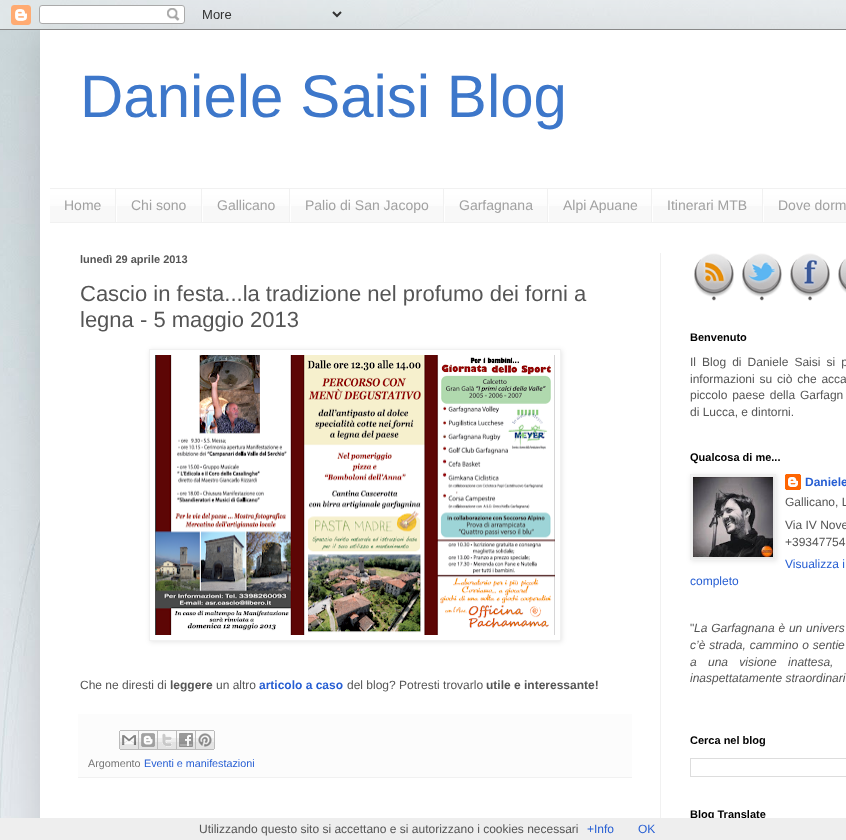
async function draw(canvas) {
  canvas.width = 846
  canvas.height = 840
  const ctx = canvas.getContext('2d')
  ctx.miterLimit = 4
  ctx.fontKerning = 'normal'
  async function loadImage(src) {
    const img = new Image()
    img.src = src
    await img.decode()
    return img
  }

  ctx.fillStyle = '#fff'
  ctx.fillRect(0, 0, 846, 840)
  ctx.drawImage(await loadImage('image0.png'), 0, 0, 846, 818)
  ctx.fillStyle = '#00000026'
  ctx.filter = 'blur(20px)'
  ctx.beginPath()
  ctx.rect(40, 30, 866, 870)
  ctx.fill()
  ctx.filter = 'none'
  ctx.drawImage(await loadImage('image1.png'), 0, 0, 846, 30)
  ctx.fillStyle = '#fff'
  ctx.fillRect(40, 30, 806, 788)
  ctx.font = '60px Liberation Sans'
  ctx.fillStyle = '#3d77ca'
  ctx.fillText('Daniele Saisi Blog', 80, 117)
  ctx.fillStyle = '#f8f8f8'
  ctx.fillRect(50, 190, 796, 32)
  ctx.drawImage(await loadImage('image2.png'), 50, 189, 796, 17)
  ctx.fillStyle = '#f1f1f1'
  ctx.fillRect(50, 188, 796, 1)
  ctx.fillRect(50, 222, 796, 1)
  ctx.fillRect(115, 189, 1, 33)
  ctx.font = '14px Liberation Sans'
  ctx.fillStyle = '#a1a1a1'
  ctx.fillText('Home', 64, 210)
  ctx.fillStyle = '#f1f1f1'
  ctx.fillRect(201, 189, 1, 33)
  ctx.fillStyle = '#fff'
  ctx.fillRect(116, 204, 1, 18)
  ctx.fillStyle = '#a1a1a1'
  ctx.fillText('Chi sono', 131, 210)
  ctx.fillStyle = '#f1f1f1'
  ctx.fillRect(289, 189, 1, 33)
  ctx.fillStyle = '#fff'
  ctx.fillRect(202, 204, 1, 18)
  ctx.fillStyle = '#a1a1a1'
  ctx.fillText('Gallicano', 217, 210)
  ctx.fillStyle = '#f1f1f1'
  ctx.fillRect(443, 189, 1, 33)
  ctx.fillStyle = '#fff'
  ctx.fillRect(290, 204, 1, 18)
  ctx.fillStyle = '#a1a1a1'
  ctx.fillText('Palio di San Jacopo', 305, 210)
  ctx.fillStyle = '#f1f1f1'
  ctx.fillRect(547, 189, 1, 33)
  ctx.fillStyle = '#fff'
  ctx.fillRect(444, 204, 1, 18)
  ctx.fillStyle = '#a1a1a1'
  ctx.fillText('Garfagnana', 459, 210)
  ctx.fillStyle = '#f1f1f1'
  ctx.fillRect(651, 189, 1, 33)
  ctx.fillStyle = '#fff'
  ctx.fillRect(548, 204, 1, 18)
  ctx.fillStyle = '#a1a1a1'
  ctx.fillText('Alpi Apuane', 563, 210)
  ctx.fillStyle = '#f1f1f1'
  ctx.fillRect(762, 189, 1, 33)
  ctx.fillStyle = '#fff'
  ctx.fillRect(652, 204, 1, 18)
  ctx.fillStyle = '#a1a1a1'
  ctx.fillText('Itinerari MTB', 667, 210)
  ctx.fillStyle = '#fff'
  ctx.fillRect(763, 204, 1, 18)
  ctx.fillStyle = '#a1a1a1'
  ctx.fillText('Dove dorm', 778, 210)
  ctx.fillStyle = '#f1f1f1'
  ctx.fillRect(660, 253, 1, 565)
  ctx.font = 'bold 11px Liberation Sans'
  ctx.fillStyle = '#555'
  ctx.fillText('lunedì 29 aprile 2013', 80, 263)
  ctx.font = '22px Liberation Sans'
  ctx.fillText('Cascio in festa...la tradizione nel profumo dei forni a', 80, 301)
  ctx.fillText('legna - 5 maggio 2013', 80, 327)
  ctx.save()
  ctx.beginPath()
  ctx.moveTo(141, 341)
  ctx.lineTo(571, 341)
  ctx.lineTo(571, 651)
  ctx.lineTo(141, 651)
  ctx.closePath()
  ctx.moveTo(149, 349)
  ctx.lineTo(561, 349)
  ctx.lineTo(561, 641)
  ctx.lineTo(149, 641)
  ctx.closePath()
  ctx.clip('evenodd')
  ctx.fillStyle = '#0000001a'
  ctx.filter = 'blur(2.5px)'
  ctx.beginPath()
  ctx.rect(150, 350, 412, 292)
  ctx.fill()
  ctx.filter = 'none'
  ctx.restore()
  ctx.strokeStyle = '#f1f1f1'
  ctx.strokeRect(149.5, 349.5, 411, 291)
  ctx.drawImage(await loadImage('image3.png'), 155, 355, 400, 280)
  ctx.font = '12px Liberation Sans'
  ctx.fillText('Che ne diresti di', 80, 689)
  ctx.font = 'bold 12px Liberation Sans'
  ctx.fillText('leggere', 170, 689)
  ctx.font = '12px Liberation Sans'
  ctx.fillText('un altro', 216, 689)
  ctx.font = 'bold 12px Liberation Sans'
  ctx.fillStyle = '#265ed3'
  ctx.fillText('articolo a caso', 259, 689)
  ctx.font = '12px Liberation Sans'
  ctx.fillStyle = '#555'
  ctx.fillText('del blog? Potresti trovarlo', 347, 689)
  ctx.font = 'bold 12px Liberation Sans'
  ctx.fillText('utile e interessante!', 486, 689)
  ctx.fillStyle = '#fcfcfc'
  ctx.fillRect(78, 714, 554, 63)
  ctx.fillStyle = '#f1f1f1'
  ctx.fillRect(78, 777, 554, 1)
  ctx.drawImage(await loadImage('image4.png'), 119, 730, 20, 20)
  ctx.drawImage(await loadImage('image5.png'), 139, 730, 19, 20)
  ctx.drawImage(await loadImage('image6.png'), 158, 730, 19, 20)
  ctx.drawImage(await loadImage('image7.png'), 177, 730, 19, 20)
  ctx.drawImage(await loadImage('image8.png'), 196, 730, 19, 20)
  ctx.font = '10.75px Liberation Sans'
  ctx.fillStyle = '#767676'
  ctx.fillText('Argomento', 88, 767)
  ctx.fillStyle = '#265ed3'
  ctx.fillText('Eventi e manifestazioni', 144, 767)
  ctx.drawImage(await loadImage('image9.png'), 694, 253, 40, 48)
  ctx.drawImage(await loadImage('image10.png'), 742, 253, 40, 48)
  ctx.drawImage(await loadImage('image11.png'), 790, 253, 40, 48)
  ctx.drawImage(await loadImage('image12.png'), 838, 258, 8, 35)
  ctx.font = 'bold 11px Liberation Sans'
  ctx.fillStyle = '#000'
  ctx.fillText('Benvenuto', 690, 341)
  ctx.wordSpacing = '2.75px'
  ctx.font = '12px Liberation Sans'
  ctx.fillStyle = '#555'
  ctx.fillText('Il Blog di Daniele Saisi si p', 690, 366)
  ctx.wordSpacing = '1.5px'
  ctx.fillText('informazioni su ciò che acca', 690, 383)
  ctx.fillText('piccolo paese della Garfagn', 690, 399)
  ctx.wordSpacing = '0px'
  ctx.fillText('di Lucca, e dintorni.', 690, 416)
  ctx.font = 'bold 11px Liberation Sans'
  ctx.fillStyle = '#000'
  ctx.fillText('Qualcosa di me...', 690, 461)
  ctx.drawImage(await loadImage('image14.png'), 785, 474, 16, 16)
  ctx.fillStyle = '#0000001a'
  ctx.filter = 'blur(2.5px)'
  ctx.beginPath()
  ctx.rect(691, 475, 86, 86)
  ctx.fill()
  ctx.filter = 'none'
  ctx.strokeRect(690.5, 474.5, 85, 85)
  ctx.drawImage(await loadImage('image13.png'), 693, 477, 80, 80)
  ctx.font = 'bold 12px Liberation Sans'
  ctx.fillStyle = '#265ed3'
  ctx.fillText('Daniele', 805, 486)
  ctx.font = '12px Liberation Sans'
  ctx.fillStyle = '#555'
  ctx.fillText('Gallicano, L', 785, 506)
  ctx.fillText('Via IV Nove', 785, 529)
  ctx.fillText('+39347754', 785, 546)
  ctx.fillStyle = '#265ed3'
  ctx.fillText('Visualizza i', 785, 568)
  ctx.fillText('completo', 690, 585)
  ctx.fillStyle = '#555'
  ctx.fillText('"', 690, 632)
  ctx.wordSpacing = '0.5px'
  ctx.font = 'italic 12px Liberation Sans'
  ctx.fillText('La Garfagnana è un univers', 694, 632)
  ctx.fillText('c’è strada, cammino o sentie', 690, 649)
  ctx.wordSpacing = '8px'
  ctx.fillText('a una visione inattesa,', 690, 666)
  ctx.wordSpacing = '0px'
  ctx.fillText('inaspettatamente straordinari', 690, 682)
  ctx.font = 'bold 11px Liberation Sans'
  ctx.fillStyle = '#000'
  ctx.fillText('Cerca nel blog', 690, 744)
  ctx.strokeStyle = '#ddd'
  ctx.strokeRect(690.5, 758.5, 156, 18)
  ctx.fillText('Blog Translate', 690, 818)
  ctx.fillStyle = '#eee'
  ctx.fillRect(0, 818, 846, 22)
  ctx.font = '12px Liberation Sans'
  ctx.fillStyle = '#555'
  ctx.fillText('Utilizzando questo sito si accettano e si autorizzano i cookies necessari', 199, 833)
  ctx.fillStyle = '#265ed3'
  ctx.fillText('+Info', 587, 833)
  ctx.fillText('OK', 638, 833)
}

draw(document.querySelector('canvas'))
